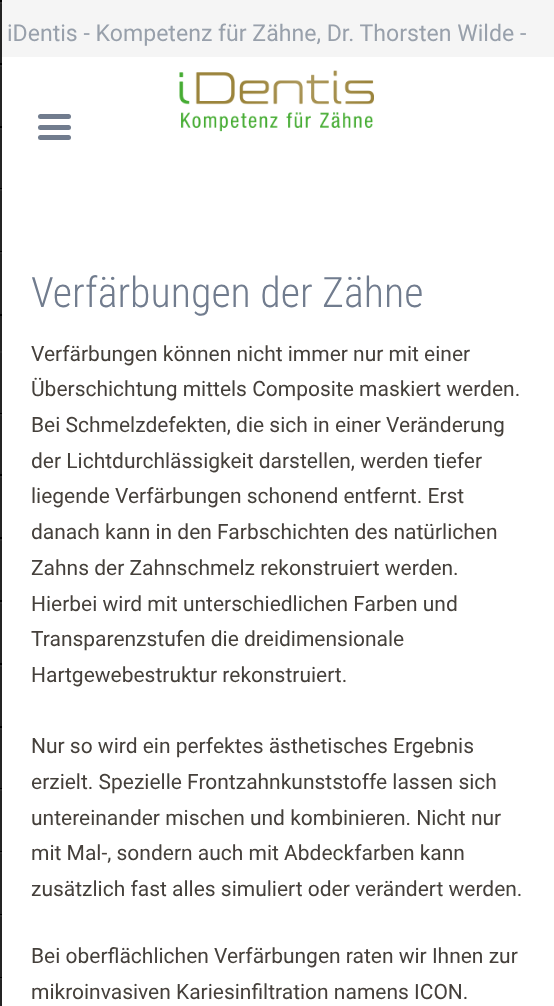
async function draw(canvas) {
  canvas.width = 554
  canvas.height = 1006
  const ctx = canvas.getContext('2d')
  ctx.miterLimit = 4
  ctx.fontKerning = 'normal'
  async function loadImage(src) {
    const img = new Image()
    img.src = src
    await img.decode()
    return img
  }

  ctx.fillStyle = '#fff'
  ctx.fillRect(0, 0, 554, 1006)
  ctx.fillStyle = '#242424'
  ctx.fillRect(0, 0, 2, 788)
  ctx.fillStyle = '#000'
  ctx.fillRect(0, 0, 2, 2)
  ctx.fillStyle = '#2f2f2f'
  ctx.fillRect(0, 2, 2, 2)
  ctx.fillStyle = '#000'
  ctx.fillRect(0, 63, 2, 2)
  ctx.fillStyle = '#2f2f2f'
  ctx.fillRect(0, 65, 2, 2)
  ctx.fillStyle = '#000'
  ctx.fillRect(0, 126, 2, 2)
  ctx.fillStyle = '#2f2f2f'
  ctx.fillRect(0, 128, 2, 2)
  ctx.fillStyle = '#000'
  ctx.fillRect(0, 188, 2, 1)
  ctx.fillStyle = '#2f2f2f'
  ctx.fillRect(0, 189, 2, 2)
  ctx.fillStyle = '#000'
  ctx.fillRect(0, 251, 2, 1)
  ctx.fillStyle = '#2f2f2f'
  ctx.fillRect(0, 252, 2, 2)
  ctx.fillStyle = '#000'
  ctx.fillRect(0, 314, 2, 2)
  ctx.fillStyle = '#2f2f2f'
  ctx.fillRect(0, 351, 2, 2)
  ctx.fillStyle = '#000'
  ctx.fillRect(0, 413, 2, 1)
  ctx.fillStyle = '#2f2f2f'
  ctx.fillRect(0, 414, 2, 2)
  ctx.fillStyle = '#000'
  ctx.fillRect(0, 474, 2, 2)
  ctx.fillStyle = '#2f2f2f'
  ctx.fillRect(0, 476, 2, 2)
  ctx.fillStyle = '#000'
  ctx.fillRect(0, 537, 2, 2)
  ctx.fillStyle = '#2f2f2f'
  ctx.fillRect(0, 539, 2, 2)
  ctx.fillStyle = '#000'
  ctx.fillRect(0, 600, 2, 2)
  ctx.fillStyle = '#2f2f2f'
  ctx.fillRect(0, 602, 2, 2)
  ctx.fillStyle = '#000'
  ctx.fillRect(0, 663, 2, 2)
  ctx.fillStyle = '#2f2f2f'
  ctx.fillRect(0, 665, 2, 2)
  ctx.fillStyle = '#000'
  ctx.fillRect(0, 726, 2, 2)
  ctx.fillStyle = '#2f2f2f'
  ctx.fillRect(0, 728, 2, 2)
  ctx.fillStyle = '#000'
  ctx.fillRect(0, 788, 2, 1)
  ctx.fillStyle = '#242424'
  ctx.fillRect(0, 789, 2, 217)
  ctx.fillStyle = '#2f2f2f'
  ctx.fillRect(0, 789, 2, 2)
  ctx.fillStyle = '#000'
  ctx.fillRect(0, 851, 2, 1)
  ctx.fillStyle = '#2f2f2f'
  ctx.fillRect(0, 852, 2, 2)
  ctx.fillStyle = '#000'
  ctx.fillRect(0, 914, 2, 1)
  ctx.fillStyle = '#2f2f2f'
  ctx.fillRect(0, 915, 2, 2)
  ctx.fillStyle = '#000'
  ctx.fillRect(0, 977, 2, 1)
  ctx.fillStyle = '#2f2f2f'
  ctx.fillRect(0, 978, 2, 2)
  ctx.fillStyle = '#f5f5f5'
  ctx.fillRect(2, 0, 552, 57)
  ctx.font = '23.1px Roboto'
  ctx.fillStyle = '#98a0ab'
  ctx.fillText('iDentis - Kompetenz für Zähne, Dr. Thorsten Wilde -', 7, 41)
  ctx.drawImage(await loadImage('image0.png'), 179, 70, 195, 62)
  ctx.fillStyle = '#717c8e'
  ctx.beginPath()
  ctx.roundRect(38, 135, 33, 5, 2.5)
  ctx.fill()
  ctx.beginPath()
  ctx.roundRect(38, 125, 33, 5, 2.5)
  ctx.fill()
  ctx.beginPath()
  ctx.roundRect(38, 114, 33, 5, 2.5)
  ctx.fill()
  ctx.font = '300 42px Roboto Condensed'
  ctx.fillText('Verfärbungen der Zähne', 31, 307)
  ctx.font = '21px Roboto'
  ctx.fillStyle = '#45403b'
  ctx.fillText('Verfärbungen können nicht immer nur mit einer', 31, 361)
  ctx.fillText('Überschichtung mittels Composite maskiert werden.', 31, 396)
  ctx.fillText('Bei Schmelzdefekten, die sich in einer Veränderung', 31, 432)
  ctx.fillText('der Lichtdurchlässigkeit darstellen, werden tiefer', 31, 468)
  ctx.fillText('liegende Verfärbungen schonend entfernt. Erst', 31, 503)
  ctx.fillText('danach kann in den Farbschichten des natürlichen', 31, 539)
  ctx.fillText('Zahns der Zahnschmelz rekonstruiert werden.', 31, 575)
  ctx.fillText('Hierbei wird mit unterschiedlichen Farben und', 31, 611)
  ctx.fillText('Transparenzstufen die dreidimensionale', 31, 646)
  ctx.fillText('Hartgewebestruktur rekonstruiert.', 31, 682)
  ctx.fillText('Nur so wird ein perfektes ästhetisches Ergebnis', 31, 753)
  ctx.fillText('erzielt. Spezielle Frontzahnkunststoffe lassen sich', 31, 789)
  ctx.fillText('untereinander mischen und kombinieren. Nicht nur', 31, 825)
  ctx.fillText('mit Mal-, sondern auch mit Abdeckfarben kann', 31, 860)
  ctx.fillText('zusätzlich fast alles simuliert oder verändert werden.', 31, 896)
  ctx.fillText('Bei oberflächlichen Verfärbungen raten wir Ihnen zur', 31, 963)
  ctx.fillText('mikroinvasiven Kariesinfiltration namens ICON.', 31, 999)
}

draw(document.querySelector('canvas'))
